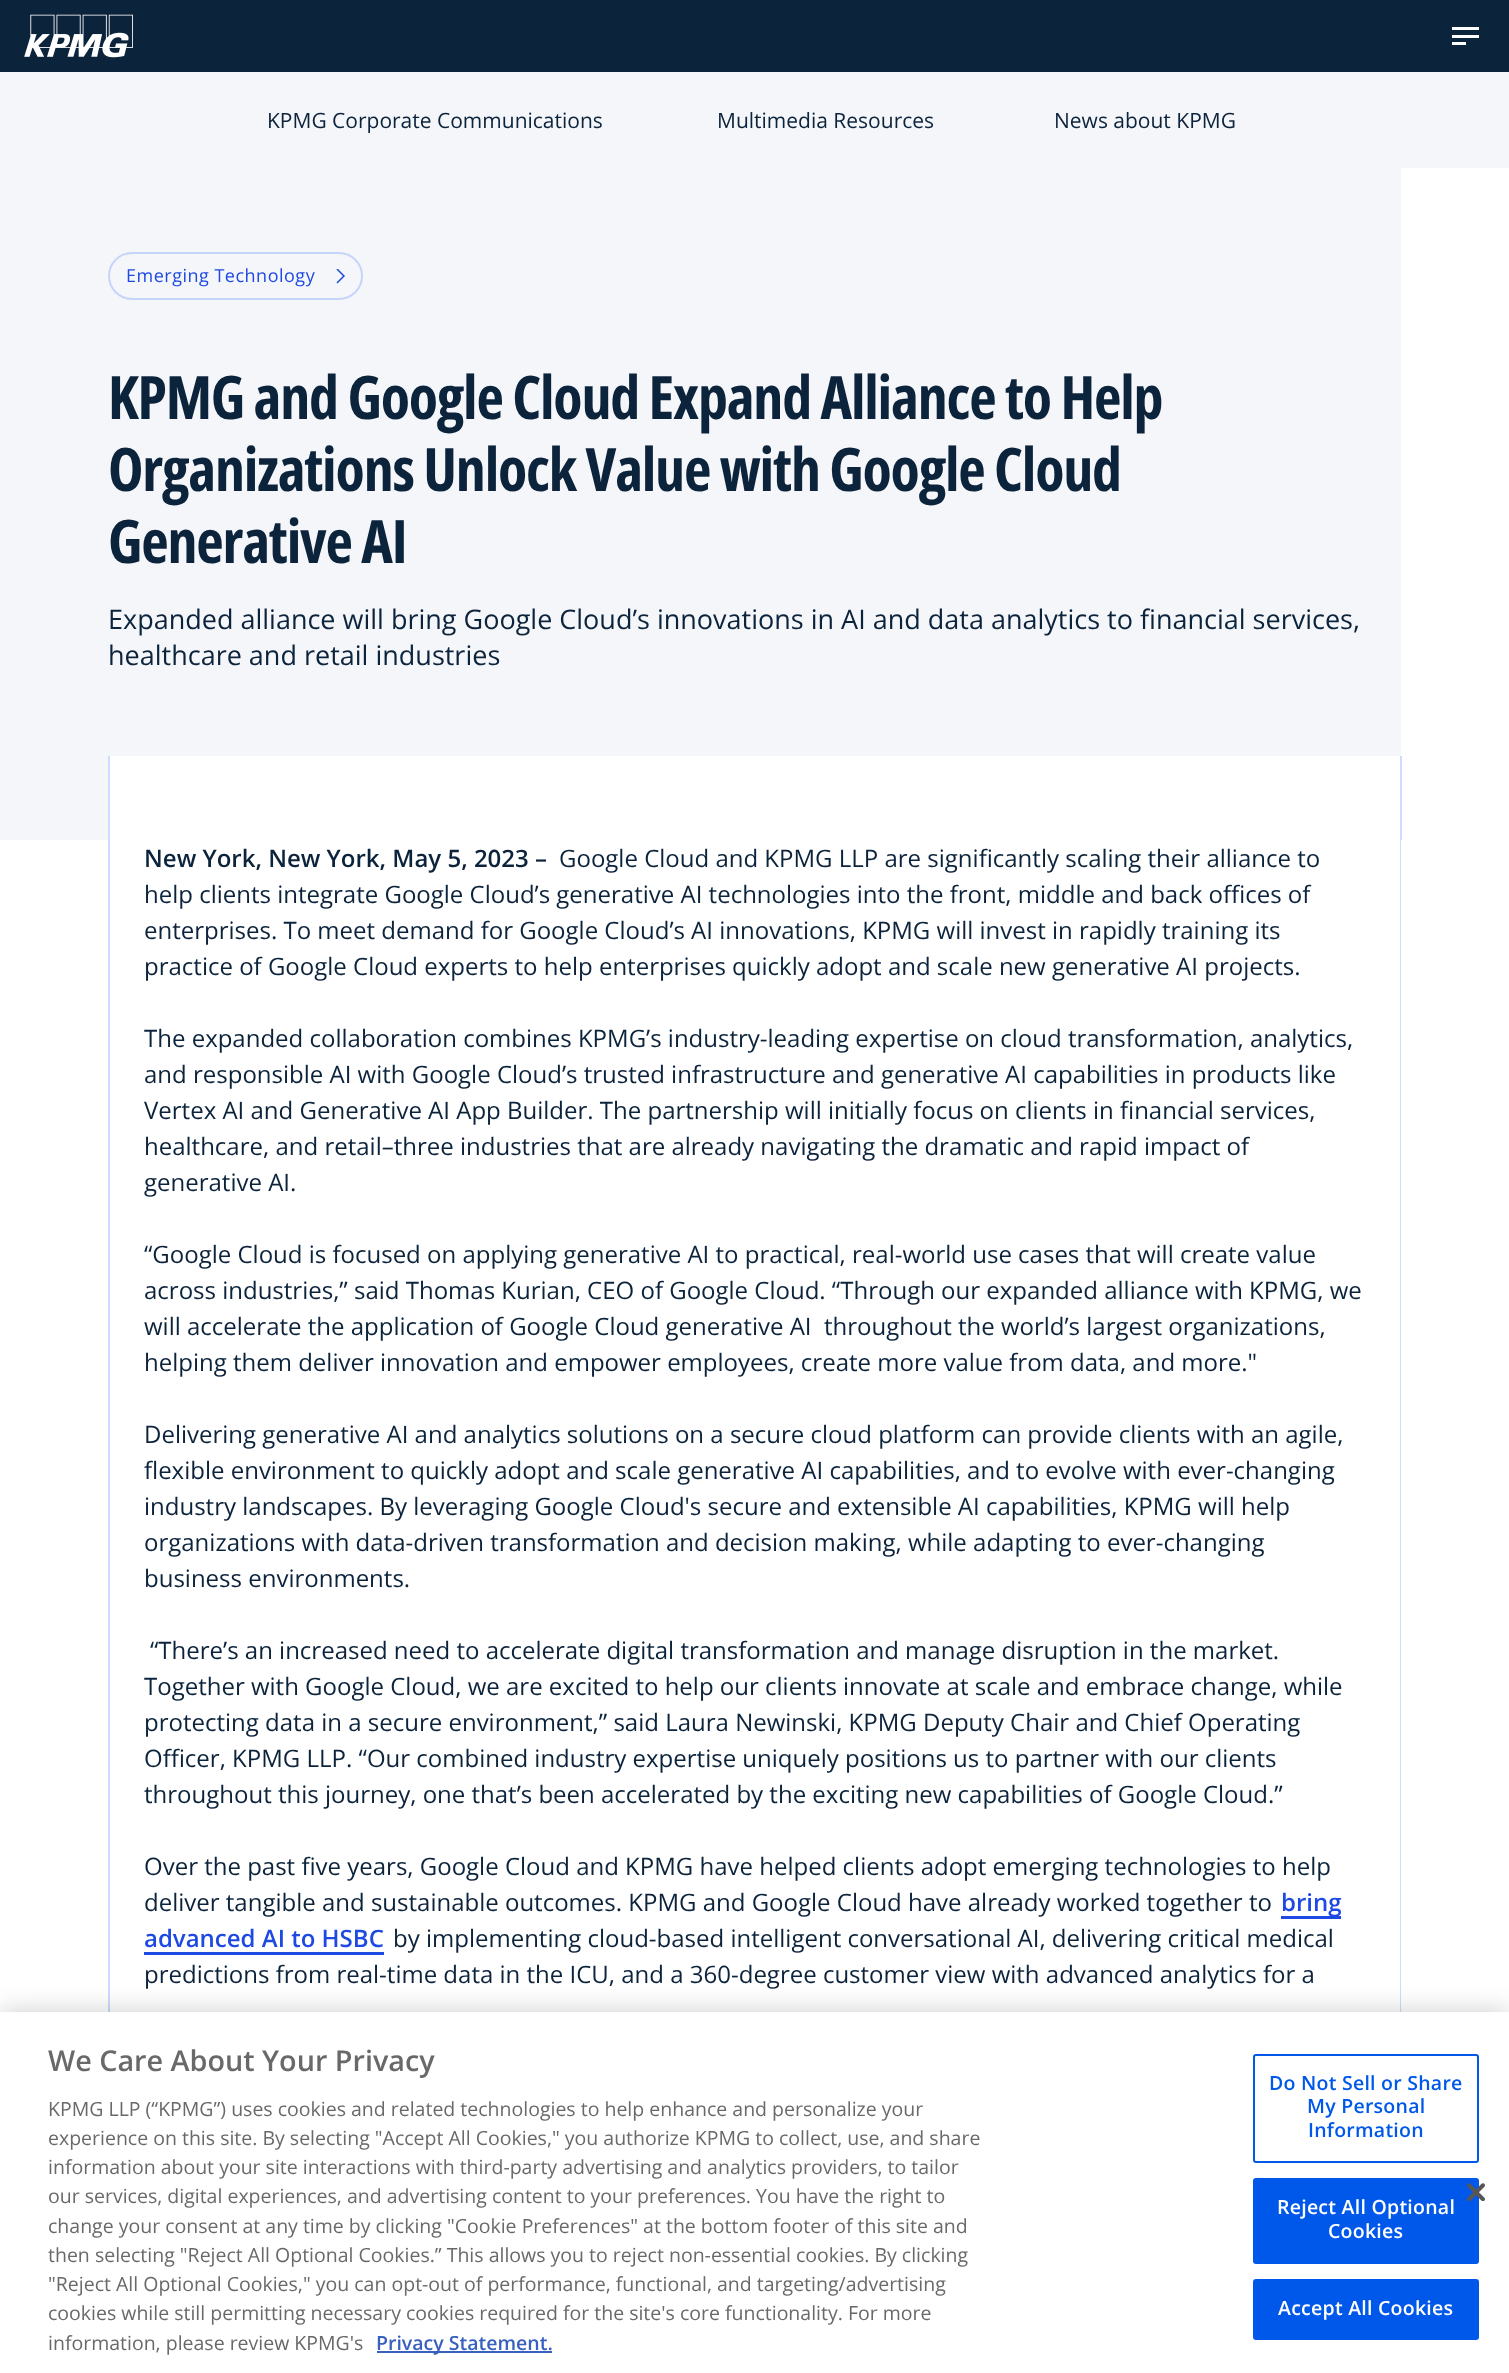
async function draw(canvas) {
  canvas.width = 1509
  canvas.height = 2373
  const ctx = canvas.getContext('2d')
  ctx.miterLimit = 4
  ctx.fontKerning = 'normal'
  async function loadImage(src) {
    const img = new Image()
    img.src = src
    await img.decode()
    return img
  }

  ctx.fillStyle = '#fff'
  ctx.fillRect(0, 0, 1509, 2373)
  ctx.fillStyle = '#0c233c'
  ctx.fillRect(0, 0, 1509, 72)
  ctx.drawImage(await loadImage('image0.png'), 24, 14, 109, 44)
  ctx.fillStyle = '#fff'
  ctx.fillRect(1452, 27, 27, 3)
  ctx.fillRect(1452, 35, 27, 3)
  ctx.fillRect(1452, 42, 14, 3)
  ctx.fillStyle = '#f5f6fa'
  ctx.fillRect(0, 72, 1509, 96)
  ctx.font = '21px Open Sans'
  ctx.fillStyle = '#0c233c'
  ctx.fillText('KPMG Corporate Communications', 267, 128)
  ctx.fillText('Multimedia Resources', 717, 128)
  ctx.fillText('News about KPMG', 1054, 128)
  ctx.fillStyle = '#f5f6fa'
  ctx.fillRect(0, 168, 1401, 672)
  ctx.beginPath()
  ctx.roundRect(109, 253, 253, 46, 23)
  ctx.strokeStyle = '#c5d5fa'
  ctx.lineWidth = 2
  ctx.stroke()
  ctx.letterSpacing = '0.5px'
  ctx.font = '18px Open Sans'
  ctx.fillStyle = '#1e49e2'
  ctx.fillText('Emerging Technology', 126, 282)
  ctx.drawImage(await loadImage('image1.png'), 336, 269, 9, 15)
  ctx.letterSpacing = '-1.2px'
  ctx.font = 'bold 60px Open Sans Condensed'
  ctx.fillStyle = '#0c233c'
  ctx.fillText('KPMG and Google Cloud Expand Alliance to Help', 108, 419)
  ctx.fillText('Organizations Unlock Value with Google Cloud', 108, 491)
  ctx.fillText('Generative AI', 108, 563)
  ctx.letterSpacing = '0px'
  ctx.font = '27px Open Sans'
  ctx.fillText('Expanded alliance will bring Google Cloud’s innovations in AI and data analytics to financial services,', 108, 629)
  ctx.fillText('healthcare and retail industries', 108, 665)
  ctx.fillStyle = '#fff'
  ctx.fillRect(110, 756, 1290, 84)
  ctx.fillStyle = '#cddcfe'
  ctx.fillRect(1400, 756, 2, 84)
  ctx.fillRect(1400, 840, 1, 1172)
  ctx.fillRect(108, 756, 2, 1256)
  ctx.font = '600 24px Open Sans'
  ctx.fillStyle = '#0c233c'
  ctx.fillText('New York, New York, May 5, 2023 –', 144, 867)
  ctx.font = '24px Open Sans'
  ctx.fillText('Google Cloud and KPMG LLP are significantly scaling their alliance to', 559, 867)
  ctx.fillText('help clients integrate Google Cloud’s generative AI technologies into the front, middle and back offices of', 144, 903)
  ctx.fillText('enterprises. To meet demand for Google Cloud’s AI innovations, KPMG will invest in rapidly training its', 144, 939)
  ctx.fillText('practice of Google Cloud experts to help enterprises quickly adopt and scale new generative AI projects.', 144, 975)
  ctx.fillText('The expanded collaboration combines KPMG’s industry-leading expertise on cloud transformation, analytics,', 144, 1047)
  ctx.fillText('and responsible AI with Google Cloud’s trusted infrastructure and generative AI capabilities in products like', 144, 1083)
  ctx.fillText('Vertex AI and Generative AI App Builder. The partnership will initially focus on clients in financial services,', 144, 1119)
  ctx.fillText('healthcare, and retail–three industries that are already navigating the dramatic and rapid impact of', 144, 1155)
  ctx.fillText('generative AI.', 144, 1191)
  ctx.fillText('“Google Cloud is focused on applying generative AI to practical, real-world use cases that will create value', 144, 1263)
  ctx.fillText('across industries,” said Thomas Kurian, CEO of Google Cloud. “Through our expanded alliance with KPMG, we', 144, 1299)
  ctx.fillText('will accelerate the application of Google Cloud generative AI  throughout the world’s largest organizations,', 144, 1335)
  ctx.fillText('helping them deliver innovation and empower employees, create more value from data, and more."', 144, 1371)
  ctx.fillText('Delivering generative AI and analytics solutions on a secure cloud platform can provide clients with an agile,', 144, 1443)
  ctx.fillText('flexible environment to quickly adopt and scale generative AI capabilities, and to evolve with ever-changing', 144, 1479)
  ctx.fillText('industry landscapes. By leveraging Google Cloud\'s secure and extensible AI capabilities, KPMG will help', 144, 1515)
  ctx.fillText('organizations with data-driven transformation and decision making, while adapting to ever-changing', 144, 1551)
  ctx.fillText('business environments.', 144, 1587)
  ctx.fillText('“There’s an increased need to accelerate digital transformation and manage disruption in the market.', 150, 1659)
  ctx.fillText('Together with Google Cloud, we are excited to help our clients innovate at scale and embrace change, while', 144, 1695)
  ctx.fillText('protecting data in a secure environment,” said Laura Newinski, KPMG Deputy Chair and Chief Operating', 144, 1731)
  ctx.fillText('Officer, KPMG LLP. “Our combined industry expertise uniquely positions us to partner with our clients', 144, 1767)
  ctx.fillText('throughout this journey, one that’s been accelerated by the exciting new capabilities of Google Cloud.”', 144, 1803)
  ctx.fillText('Over the past five years, Google Cloud and KPMG have helped clients adopt emerging technologies to help', 144, 1875)
  ctx.fillText('deliver tangible and sustainable outcomes. KPMG and Google Cloud have already worked together to', 144, 1911)
  ctx.fillStyle = '#1e49e2'
  ctx.fillRect(1281, 1916, 60, 3)
  ctx.font = '600 24px Open Sans'
  ctx.fillText('bring', 1281, 1911)
  ctx.fillText('advanced AI to HSBC', 144, 1947)
  ctx.fillRect(144, 1952, 240, 3)
  ctx.font = '24px Open Sans'
  ctx.fillStyle = '#0c233c'
  ctx.fillText('by implementing cloud-based intelligent conversational AI, delivering critical medical', 393, 1947)
  ctx.fillText('predictions from real-time data in the ICU, and a 360-degree customer view with advanced analytics for a', 144, 1983)
  ctx.fillStyle = '#00000033'
  ctx.filter = 'blur(13.5px)'
  ctx.beginPath()
  ctx.rect(0, 2012, 1509, 361)
  ctx.fill()
  ctx.filter = 'none'
  ctx.fillStyle = '#fff'
  ctx.fillRect(0, 2012, 1509, 361)
  ctx.font = '600 28.75px Open Sans'
  ctx.fillStyle = '#696969'
  ctx.fillText('We Care About Your Privacy', 48, 2071)
  ctx.font = '19.5px Open Sans'
  ctx.fillText('KPMG LLP (“KPMG”) uses cookies and related technologies to help enhance and personalize your', 48, 2116)
  ctx.fillText('experience on this site. By selecting "Accept All Cookies," you authorize KPMG to collect, use, and share', 48, 2145)
  ctx.fillText('information about your site interactions with third-party advertising and analytics providers, to tailor', 48, 2174)
  ctx.fillText('our services, digital experiences, and advertising content to your preferences.', 48, 2203)
  ctx.fillText('You have the right to', 756, 2203)
  ctx.fillText('change your consent at any time by clicking "Cookie Preferences" at the bottom footer of this site and', 48, 2233)
  ctx.fillText('then selecting "Reject All Optional Cookies.” This allows you to reject non-essential cookies. By clicking', 48, 2262)
  ctx.fillText('"Reject All Optional Cookies," you can opt-out of performance, functional, and targeting/advertising', 48, 2291)
  ctx.fillText('cookies while still permitting necessary cookies required for the site\'s core functionality. For more', 48, 2320)
  ctx.fillText('information, please review KPMG\'s', 48, 2350)
  ctx.fillStyle = '#3860be'
  ctx.fillRect(377, 2351, 175, 2)
  ctx.font = '600 19.5px Open Sans'
  ctx.fillText('Privacy Statement.', 376, 2350)
  ctx.beginPath()
  ctx.roundRect(1254, 2055, 224, 107, 2)
  ctx.strokeStyle = '#0058eb'
  ctx.stroke()
  ctx.letterSpacing = '0.25px'
  ctx.fillStyle = '#0058eb'
  ctx.fillText('Do Not Sell or Share', 1269, 2090)
  ctx.fillText('My Personal', 1307, 2113)
  ctx.fillText('Information', 1308, 2137)
  ctx.beginPath()
  ctx.roundRect(1254, 2179, 224, 84, 2)
  ctx.fill()
  ctx.stroke()
  ctx.fillStyle = '#fff'
  ctx.fillText('Reject All Optional', 1277, 2214)
  ctx.fillText('Cookies', 1328, 2238)
  ctx.fillStyle = '#0058eb'
  ctx.beginPath()
  ctx.roundRect(1254, 2280, 224, 59, 2)
  ctx.fill()
  ctx.stroke()
  ctx.fillStyle = '#fff'
  ctx.fillText('Accept All Cookies', 1278, 2315)
  ctx.drawImage(await loadImage('image2.png'), 1467, 2183, 18, 18)
}

draw(document.querySelector('canvas'))
